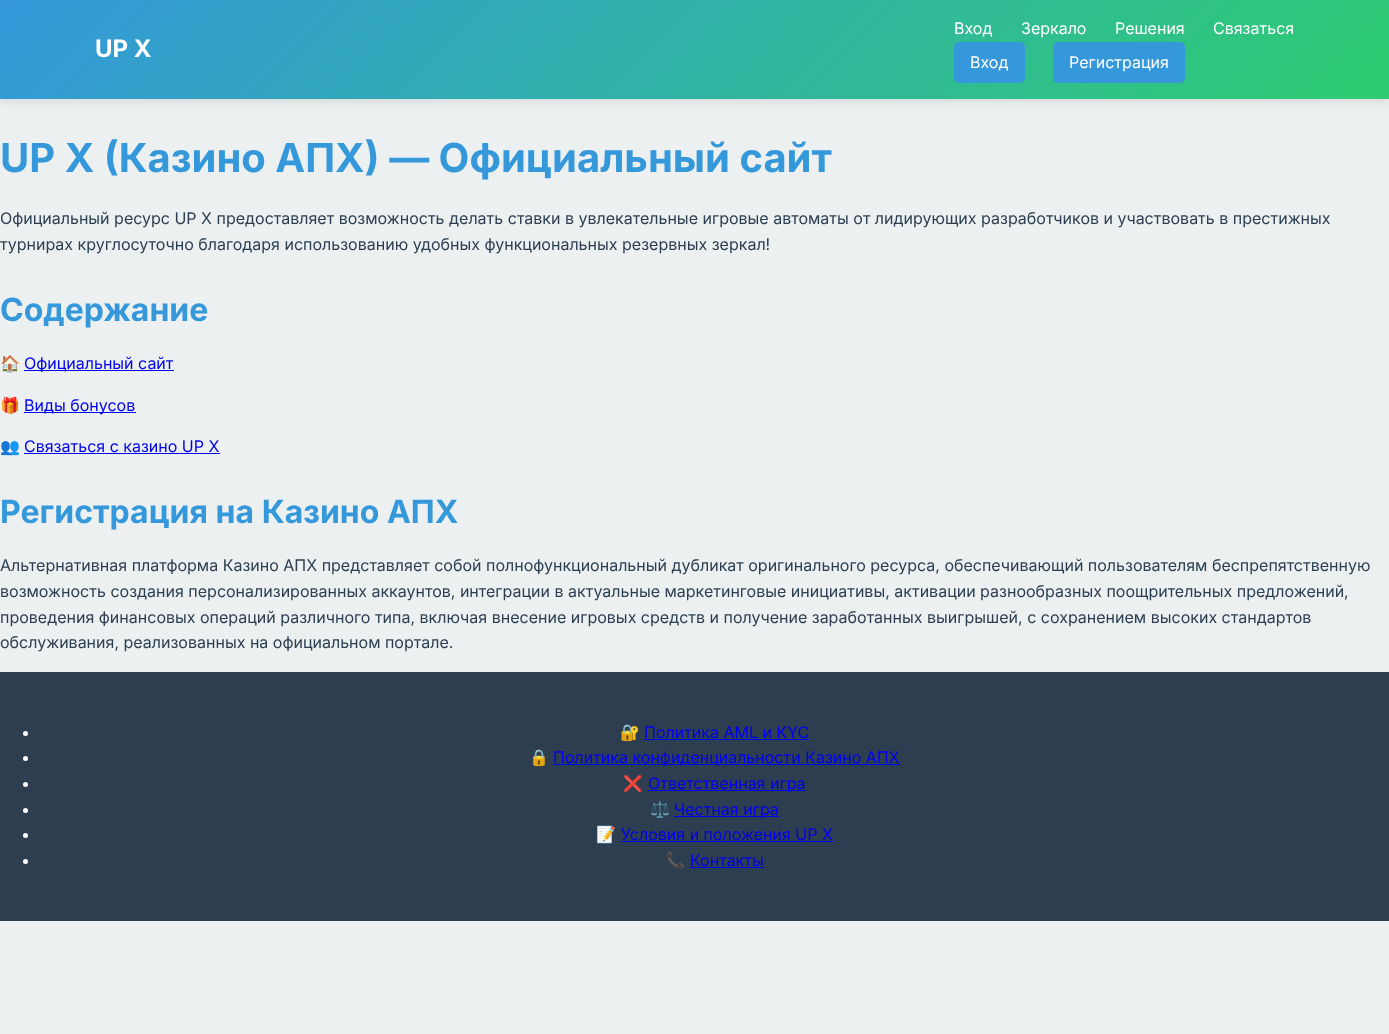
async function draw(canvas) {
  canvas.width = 1389
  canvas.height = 1034
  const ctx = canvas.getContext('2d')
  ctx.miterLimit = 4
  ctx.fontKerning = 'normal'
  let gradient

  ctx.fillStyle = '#ecf0f1'
  ctx.fillRect(0, 0, 1389, 1034)
  ctx.fillStyle = '#0000001a'
  ctx.filter = 'blur(5px)'
  ctx.beginPath()
  ctx.rect(0, 2, 1389, 99)
  ctx.fill()
  ctx.filter = 'none'
  gradient = ctx.createLinearGradient(322, -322, 1067, 422)
  gradient.addColorStop(0, '#3498db')
  gradient.addColorStop(1, '#2ecc71')
  ctx.fillStyle = gradient
  ctx.fillRect(0, 0, 1389, 99)
  ctx.font = 'bold 24px Inter'
  ctx.fillStyle = '#fff'
  ctx.fillText('UP X', 95, 57)
  ctx.font = '16px Inter'
  ctx.fillText('Вход', 954, 34)
  ctx.fillText('Зеркало', 1021, 34)
  ctx.fillText('Решения', 1115, 34)
  ctx.fillText('Связаться', 1213, 34)
  ctx.fillStyle = '#3498db'
  ctx.beginPath()
  ctx.roundRect(954, 42, 71, 41, 5)
  ctx.fill()
  ctx.fillStyle = '#fff'
  ctx.fillText('Вход', 970, 68)
  ctx.fillStyle = '#3498db'
  ctx.beginPath()
  ctx.roundRect(1053, 42, 132, 41, 5)
  ctx.fill()
  ctx.fillStyle = '#fff'
  ctx.fillText('Регистрация', 1069, 68)
  ctx.font = 'bold 40px Inter'
  ctx.fillStyle = '#3498db'
  ctx.fillText('UP X (Казино АПХ) — Официальный сайт', 0, 172)
  ctx.font = '16px Inter'
  ctx.fillStyle = '#2c3e50'
  ctx.fillText('Официальный ресурс UP X предоставляет возможность делать ставки в увлекательные игровые автоматы от лидирующих разработчиков и участвовать в престижных', 0, 224)
  ctx.fillText('турнирах круглосуточно благодаря использованию удобных функциональных резервных зеркал!', 0, 250)
  ctx.font = 'bold 32px Inter'
  ctx.fillStyle = '#3498db'
  ctx.fillText('Содержание', 0, 321)
  ctx.font = '16px Noto Color Emoji'
  ctx.fillStyle = '#2c3e50'
  ctx.fillText('🏠', 0, 369)
  ctx.fillStyle = '#00e'
  ctx.fillRect(24, 370, 150, 1)
  ctx.font = '16px Inter'
  ctx.fillText('Официальный сайт', 24, 369)
  ctx.font = '16px Noto Color Emoji'
  ctx.fillStyle = '#2c3e50'
  ctx.fillText('🎁', 0, 411)
  ctx.fillStyle = '#00e'
  ctx.fillRect(24, 412, 112, 1)
  ctx.font = '16px Inter'
  ctx.fillText('Виды бонусов', 24, 411)
  ctx.font = '16px Noto Color Emoji'
  ctx.fillStyle = '#2c3e50'
  ctx.fillText('👥', 0, 452)
  ctx.font = '16px Inter'
  ctx.fillStyle = '#00e'
  ctx.fillText('Связаться с казино UP X', 24, 452)
  ctx.fillRect(24, 453, 196, 1)
  ctx.font = 'bold 32px Inter'
  ctx.fillStyle = '#3498db'
  ctx.fillText('Регистрация на Казино АПХ', 0, 523)
  ctx.font = '16px Inter'
  ctx.fillStyle = '#2c3e50'
  ctx.fillText('Альтернативная платформа Казино АПХ представляет собой полнофункциональный дубликат оригинального ресурса, обеспечивающий пользователям беспрепятственную', 0, 571)
  ctx.fillText('возможность создания персонализированных аккаунтов, интеграции в актуальные маркетинговые инициативы, активации разнообразных поощрительных предложений,', 0, 597)
  ctx.fillText('проведения финансовых операций различного типа, включая внесение игровых средств и получение заработанных выигрышей, с сохранением высоких стандартов', 0, 623)
  ctx.fillText('обслуживания, реализованных на официальном портале.', 0, 648)
  ctx.fillRect(0, 672, 1389, 249)
  ctx.fillStyle = '#fff'
  ctx.beginPath()
  ctx.arc(25.5, 733.5, 2.5, 0, 2 * Math.PI)
  ctx.fill()
  ctx.font = '16px Noto Color Emoji'
  ctx.fillText('🔐', 620, 738)
  ctx.font = '16px Inter'
  ctx.fillStyle = '#00e'
  ctx.fillText('Политика AML и KYC', 644, 738)
  ctx.fillRect(644, 739, 165, 1)
  ctx.fillStyle = '#fff'
  ctx.beginPath()
  ctx.arc(25.5, 758.5, 2.5, 0, 2 * Math.PI)
  ctx.fill()
  ctx.font = '16px Noto Color Emoji'
  ctx.fillText('🔒', 529, 763)
  ctx.fillStyle = '#00e'
  ctx.fillRect(553, 764, 347, 1)
  ctx.font = '16px Inter'
  ctx.fillText('Политика конфиденциальности Казино АПХ', 553, 763)
  ctx.fillStyle = '#fff'
  ctx.beginPath()
  ctx.arc(25.5, 784.5, 2.5, 0, 2 * Math.PI)
  ctx.fill()
  ctx.font = '16px Noto Color Emoji'
  ctx.fillText('❌', 623, 789)
  ctx.fillStyle = '#00e'
  ctx.fillRect(648, 790, 158, 1)
  ctx.font = '16px Inter'
  ctx.fillText('Ответственная игра', 648, 789)
  ctx.fillStyle = '#fff'
  ctx.beginPath()
  ctx.arc(25.5, 810.5, 2.5, 0, 2 * Math.PI)
  ctx.fill()
  ctx.font = '16px Noto Color Emoji'
  ctx.fillText('⚖️', 650, 815)
  ctx.fillStyle = '#00e'
  ctx.fillRect(674, 816, 105, 1)
  ctx.font = '16px Inter'
  ctx.fillText('Честная игра', 674, 815)
  ctx.fillStyle = '#fff'
  ctx.beginPath()
  ctx.arc(25.5, 835.5, 2.5, 0, 2 * Math.PI)
  ctx.fill()
  ctx.font = '16px Noto Color Emoji'
  ctx.fillText('📝', 596, 840)
  ctx.font = '16px Inter'
  ctx.fillStyle = '#00e'
  ctx.fillText('Условия и положения UP X', 621, 840)
  ctx.fillRect(621, 841, 212, 1)
  ctx.fillStyle = '#fff'
  ctx.beginPath()
  ctx.arc(25.5, 861.5, 2.5, 0, 2 * Math.PI)
  ctx.fill()
  ctx.font = '16px Noto Color Emoji'
  ctx.fillText('📞', 665, 866)
  ctx.font = '16px Inter'
  ctx.fillStyle = '#00e'
  ctx.fillText('Контакты', 690, 866)
  ctx.fillRect(690, 867, 74, 1)
}

draw(document.querySelector('canvas'))
